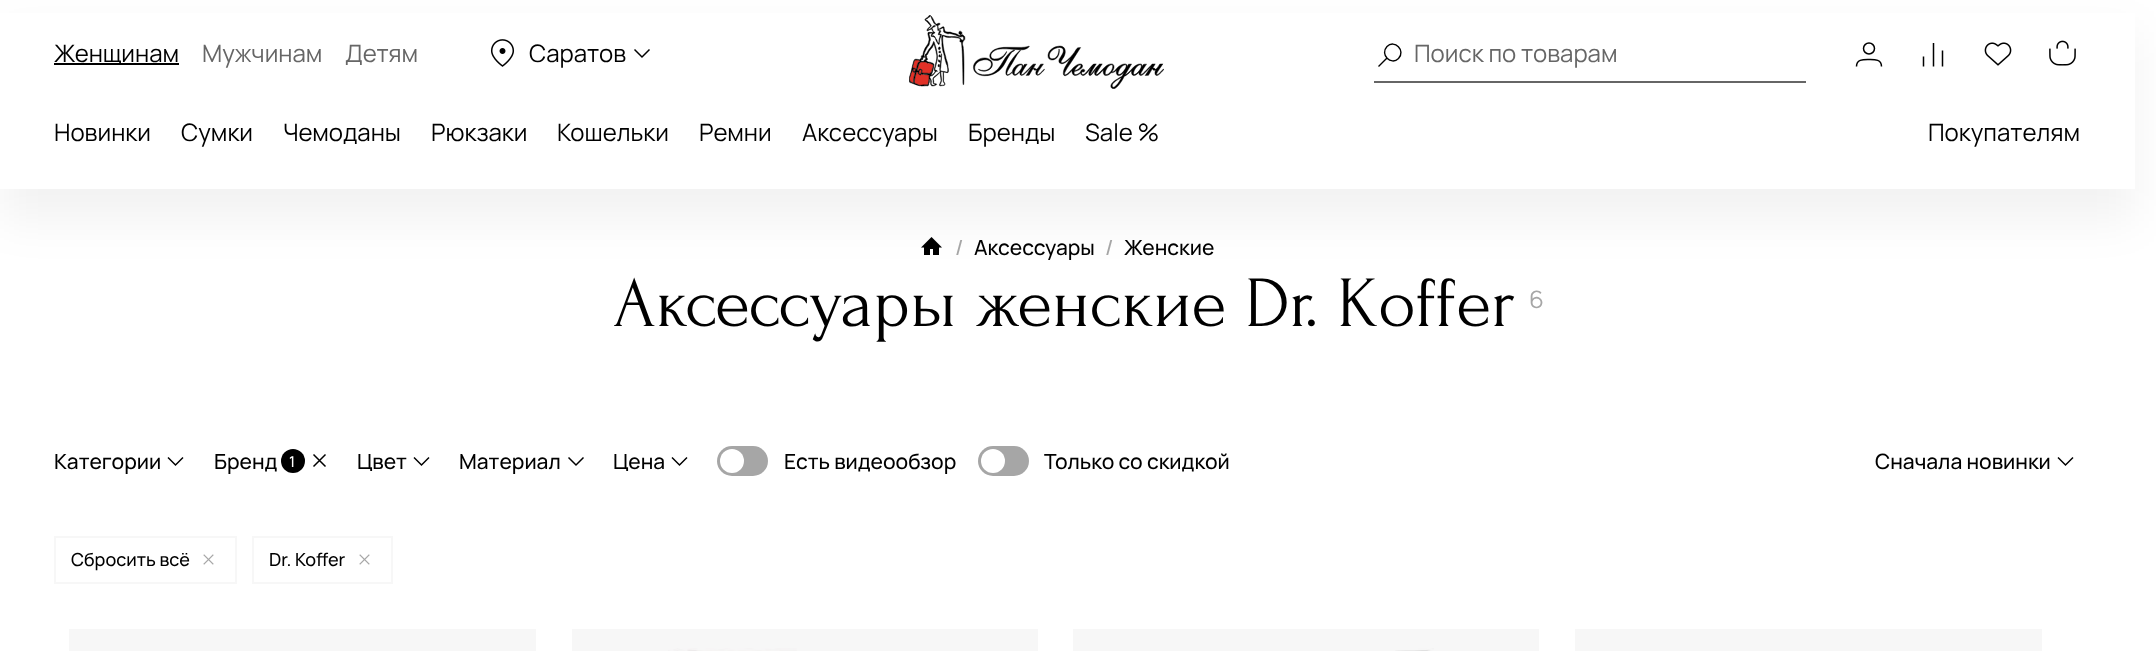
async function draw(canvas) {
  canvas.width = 2156
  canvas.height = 651
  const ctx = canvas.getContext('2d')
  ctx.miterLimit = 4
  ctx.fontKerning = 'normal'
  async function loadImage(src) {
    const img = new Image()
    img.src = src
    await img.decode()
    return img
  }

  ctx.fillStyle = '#fff'
  ctx.fillRect(0, 0, 2156, 651)
  ctx.fillStyle = '#f7f7f7'
  ctx.fillRect(1073, 629, 466, 22)
  ctx.fillRect(572, 629, 466, 22)
  ctx.drawImage(await loadImage('image4.png'), 921, 237, 21, 18)
  ctx.fillStyle = '#0000000d'
  ctx.filter = 'blur(22.5px)'
  ctx.beginPath()
  ctx.rect(0, 32, 2135, 189)
  ctx.fill()
  ctx.filter = 'none'
  ctx.fillStyle = '#fff'
  ctx.fillRect(0, 13, 2135, 176)
  ctx.fillStyle = '#000'
  ctx.fillRect(54, 63, 125, 2)
  ctx.font = '24px Manrope'
  ctx.fillText('Женщинам', 54, 62)
  ctx.fillStyle = '#666'
  ctx.fillText('Мужчинам', 202, 62)
  ctx.fillText('Детям', 345, 62)
  ctx.drawImage(await loadImage('image0.png'), 490, 39, 25, 28)
  ctx.fillStyle = '#000'
  ctx.fillText('Саратов', 529, 62)
  ctx.beginPath()
  ctx.moveTo(634.5, 49.5)
  ctx.lineTo(642, 57)
  ctx.lineTo(649.5, 49.5)
  ctx.strokeStyle = '#000'
  ctx.lineWidth = 1.5
  ctx.stroke()
  ctx.drawImage(await loadImage('image1.png'), 909, 15, 255, 74)
  ctx.fillStyle = '#666'
  ctx.fillRect(1374, 81, 432, 2)
  ctx.beginPath()
  ctx.moveTo(1398.5, 58.5)
  ctx.bezierCurveTo(1391, 66, 1379.5, 54.5, 1387, 46.5)
  ctx.bezierCurveTo(1394.5, 39, 1406, 50.5, 1398.5, 58.5)
  ctx.closePath()
  ctx.moveTo(1387, 58)
  ctx.lineTo(1378.5, 66.5)
  ctx.lineWidth = 1.4
  ctx.stroke()
  ctx.fillText('Поиск по товарам', 1414, 62)
  ctx.beginPath()
  ctx.arc(1869, 48.5, 5.5, 0, 2 * Math.PI)
  ctx.lineWidth = 1.5
  ctx.stroke()
  ctx.beginPath()
  ctx.moveTo(1881.5, 66.5)
  ctx.bezierCurveTo(1881.5, 59, 1874.5, 59.5, 1869, 59.5)
  ctx.bezierCurveTo(1863.5, 59.5, 1856.5, 59, 1856.5, 66.5)
  ctx.stroke()
  ctx.beginPath()
  ctx.moveTo(1923.5, 66.5)
  ctx.lineTo(1923.5, 56.5)
  ctx.moveTo(1933.5, 66.5)
  ctx.lineTo(1933.5, 43)
  ctx.moveTo(1942.5, 66.5)
  ctx.lineTo(1942.5, 50.5)
  ctx.stroke()
  ctx.drawImage(await loadImage('image2.png'), 1984, 42, 28, 24)
  ctx.drawImage(await loadImage('image3.png'), 2049, 40, 27, 26)
  ctx.fillStyle = '#000'
  ctx.fillText('Новинки', 54, 141)
  ctx.fillText('Сумки', 181, 141)
  ctx.fillText('Чемоданы', 283, 141)
  ctx.fillText('Рюкзаки', 431, 141)
  ctx.fillText('Кошельки', 557, 141)
  ctx.fillText('Ремни', 699, 141)
  ctx.fillText('Аксессуары', 802, 141)
  ctx.fillText('Бренды', 968, 141)
  ctx.fillText('Sale %', 1085, 141)
  ctx.fillText('Покупателям', 1928, 141)
  ctx.font = '500 21px Manrope'
  ctx.fillStyle = '#a6a6a6'
  ctx.fillText('/', 955, 255)
  ctx.fillStyle = '#000'
  ctx.fillText('Аксессуары', 974, 255)
  ctx.fillStyle = '#a6a6a6'
  ctx.fillText('/', 1105, 255)
  ctx.fillStyle = '#000'
  ctx.fillText('Женские', 1124, 255)
  ctx.font = '72px Forum'
  ctx.fillText('Аксессуары женские Dr. Koffer', 613, 326)
  ctx.font = '24px Manrope'
  ctx.fillStyle = '#a6a6a6'
  ctx.fillText('6', 1529, 308)
  ctx.font = '500 21px Manrope'
  ctx.fillStyle = '#000'
  ctx.fillText('Категории', 54, 469)
  ctx.beginPath()
  ctx.moveTo(168, 457.5)
  ctx.lineTo(175.5, 465)
  ctx.lineTo(183, 457.5)
  ctx.stroke()
  ctx.fillText('Бренд', 214, 469)
  ctx.beginPath()
  ctx.arc(293, 461, 12, 0, 2 * Math.PI)
  ctx.fill()
  ctx.font = '500 15px Manrope'
  ctx.fillStyle = '#fff'
  ctx.fillText('1', 289, 467)
  ctx.beginPath()
  ctx.moveTo(313.5, 454.5)
  ctx.lineTo(325.5, 466.5)
  ctx.moveTo(313.5, 466.5)
  ctx.lineTo(325.5, 454.5)
  ctx.stroke()
  ctx.font = '500 21px Manrope'
  ctx.fillStyle = '#000'
  ctx.fillText('Цвет', 357, 469)
  ctx.beginPath()
  ctx.moveTo(414, 457.5)
  ctx.lineTo(421.5, 465)
  ctx.lineTo(429, 457.5)
  ctx.stroke()
  ctx.fillText('Материал', 459, 469)
  ctx.beginPath()
  ctx.moveTo(568.5, 457.5)
  ctx.lineTo(576, 465)
  ctx.lineTo(583.5, 457.5)
  ctx.stroke()
  ctx.fillText('Цена', 613, 469)
  ctx.beginPath()
  ctx.moveTo(672, 457.5)
  ctx.lineTo(679.5, 465)
  ctx.lineTo(687, 457.5)
  ctx.stroke()
  ctx.fillStyle = '#a6a6a6'
  ctx.beginPath()
  ctx.roundRect(717, 446, 51, 30, 15)
  ctx.fill()
  ctx.fillStyle = '#fff'
  ctx.beginPath()
  ctx.arc(732, 461, 12, 0, 2 * Math.PI)
  ctx.fill()
  ctx.fillStyle = '#000'
  ctx.fillText('Есть видеообзор', 784, 469)
  ctx.fillStyle = '#a6a6a6'
  ctx.beginPath()
  ctx.roundRect(978, 446, 51, 30, 15)
  ctx.fill()
  ctx.fillStyle = '#fff'
  ctx.beginPath()
  ctx.arc(993, 461, 12, 0, 2 * Math.PI)
  ctx.fill()
  ctx.fillStyle = '#000'
  ctx.fillText('Только со скидкой', 1044, 469)
  ctx.fillText('Сначала новинки', 1875, 469)
  ctx.beginPath()
  ctx.moveTo(2058, 457.5)
  ctx.lineTo(2065.5, 465)
  ctx.lineTo(2073, 457.5)
  ctx.stroke()
  ctx.strokeStyle = '#f7f7f7'
  ctx.lineWidth = 2
  ctx.strokeRect(55, 537, 181, 46)
  ctx.font = '500 18px Manrope'
  ctx.fillText('Сбросить всё', 71, 566)
  ctx.drawImage(await loadImage('image5.png'), 203, 554, 11, 11)
  ctx.strokeRect(253, 537, 139, 46)
  ctx.fillText('Dr. Koffer', 269, 566)
  ctx.drawImage(await loadImage('image5.png'), 359, 554, 11, 11)
  ctx.fillStyle = '#f7f7f7'
  ctx.fillRect(69, 629, 467, 22)
  ctx.drawImage(await loadImage('image6.png'), 668, 648, 129, 3)
  ctx.drawImage(await loadImage('image7.png'), 1395, 648, 39, 3)
  ctx.fillRect(1575, 629, 467, 22)
}

draw(document.querySelector('canvas'))
